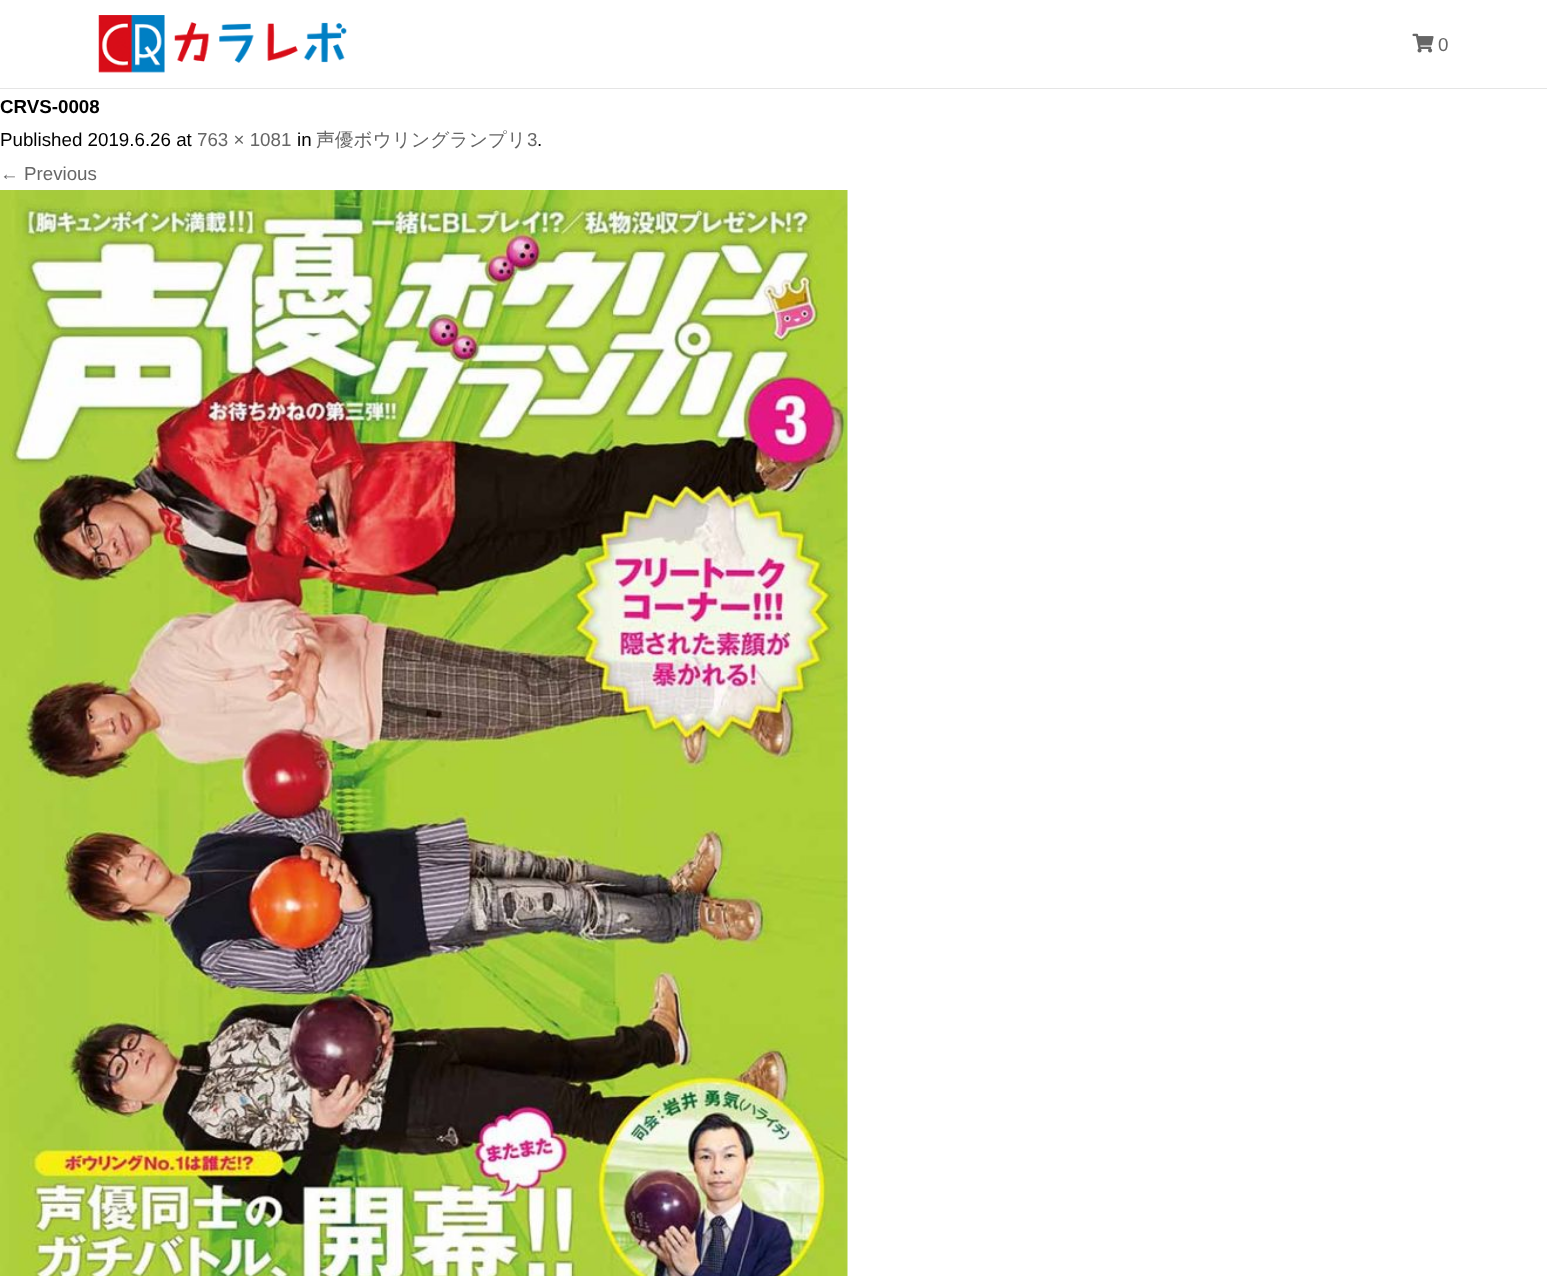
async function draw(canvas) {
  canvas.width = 1547
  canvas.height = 1276
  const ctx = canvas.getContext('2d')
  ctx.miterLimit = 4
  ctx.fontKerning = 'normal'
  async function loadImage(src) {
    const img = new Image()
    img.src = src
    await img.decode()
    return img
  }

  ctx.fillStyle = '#fff'
  ctx.fillRect(0, 0, 1547, 1276)
  ctx.fillStyle = '#e5e5e5'
  ctx.fillRect(0, 88, 1547, 1)
  ctx.drawImage(await loadImage('image0.png'), 98, 15, 249, 58)
  ctx.drawImage(await loadImage('image1.png'), 1412, 33, 22, 20)
  ctx.font = '18.75px Liberation Sans'
  ctx.fillStyle = '#666'
  ctx.fillText('0', 1438, 51)
  ctx.font = 'bold 18.75px Liberation Sans'
  ctx.fillStyle = '#000'
  ctx.fillText('CRVS-0008', 0, 113)
  ctx.font = '18.75px Liberation Sans'
  ctx.fillText('Published 2019.6.26 at', 0, 146)
  ctx.fillStyle = '#666'
  ctx.fillText('763 × 1081', 197, 146)
  ctx.fillStyle = '#000'
  ctx.fillText('in', 297, 146)
  ctx.font = '500 18.75px WenQuanYi Zen Hei'
  ctx.fillStyle = '#666'
  ctx.fillText('声優ボウリングランプリ', 316, 146)
  ctx.font = '18.75px Liberation Sans'
  ctx.fillText('3', 527, 146)
  ctx.fillStyle = '#000'
  ctx.fillText('.', 537, 146)
  ctx.fillStyle = '#666'
  ctx.fillText('← Previous', 0, 180)
  ctx.drawImage(await loadImage('image2.png'), 0, 190, 848, 1086)
}

draw(document.querySelector('canvas'))
